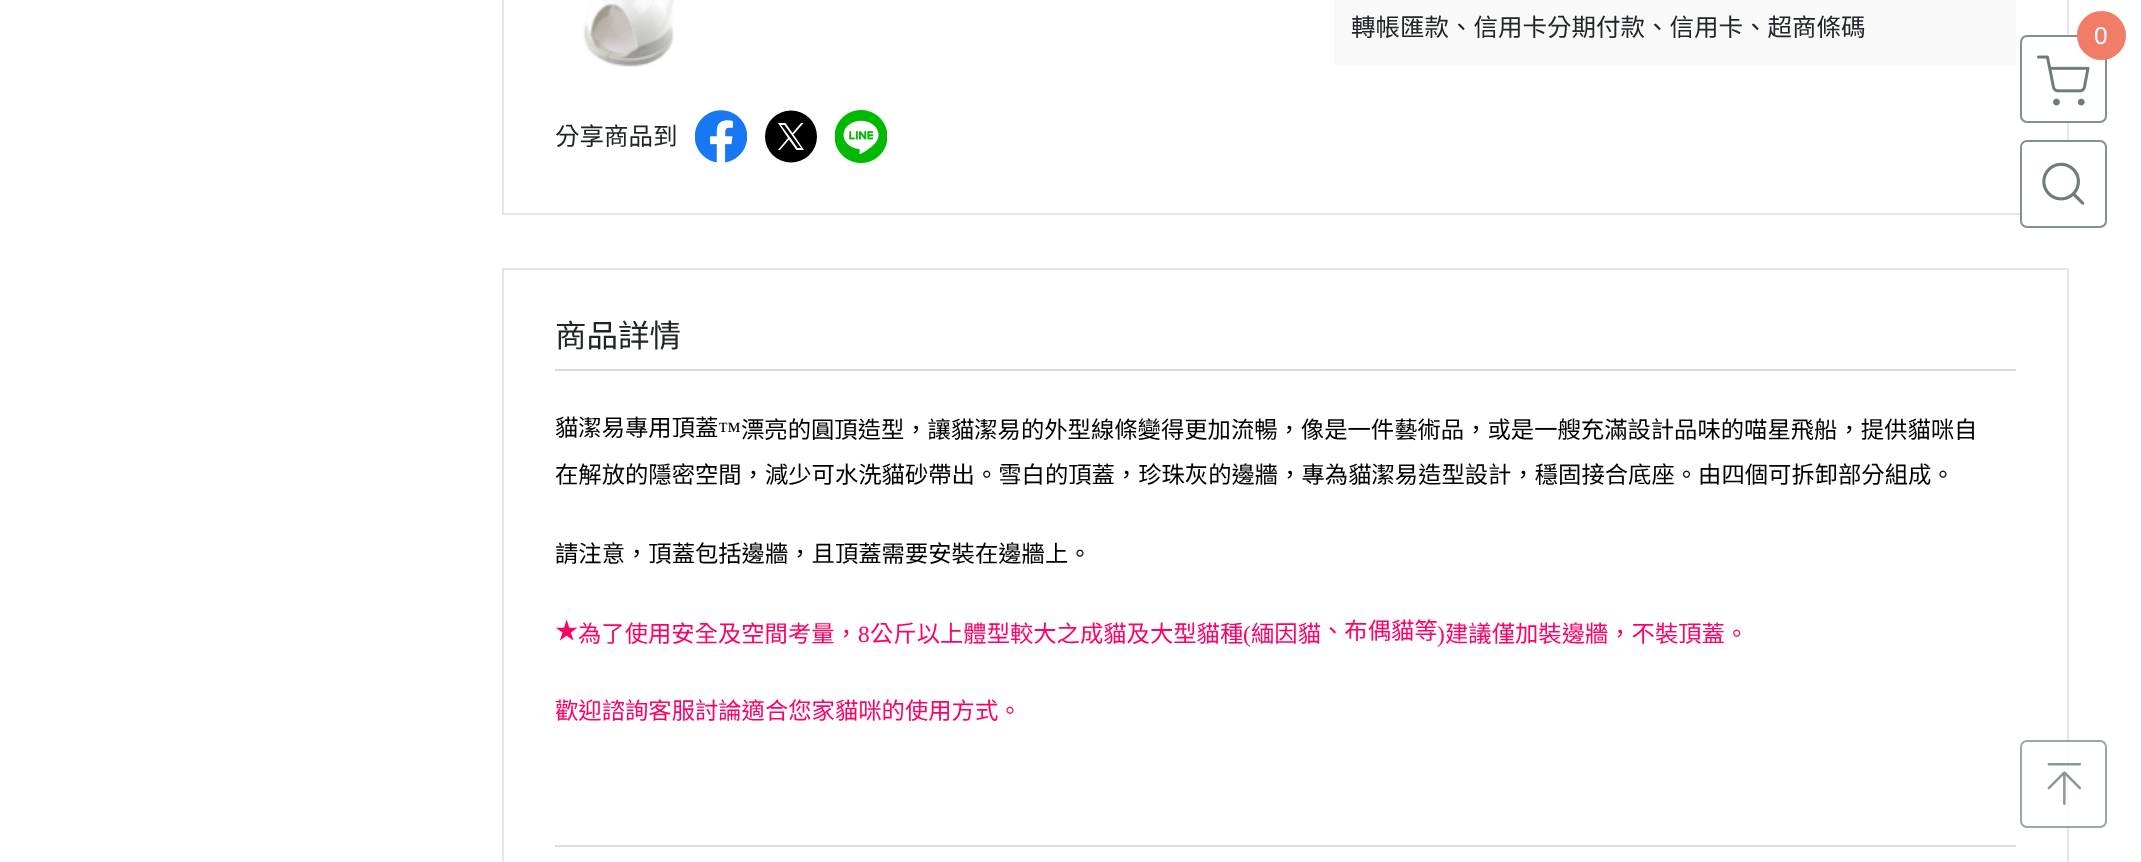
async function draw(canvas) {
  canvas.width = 2141
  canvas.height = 862
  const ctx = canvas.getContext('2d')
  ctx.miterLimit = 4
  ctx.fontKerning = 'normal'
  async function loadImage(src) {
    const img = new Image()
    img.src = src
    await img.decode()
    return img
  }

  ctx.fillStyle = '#fff'
  ctx.fillRect(0, 0, 2141, 862)
  ctx.fillStyle = '#f9f9f9'
  ctx.fillRect(1334, 0, 682, 65)
  ctx.drawImage(await loadImage('image1.png'), 695, 110, 52, 53)
  ctx.fillStyle = '#000'
  ctx.beginPath()
  ctx.arc(791, 136.5, 26, 0, 2 * Math.PI)
  ctx.fill()
  ctx.fillStyle = '#fff'
  ctx.beginPath()
  ctx.moveTo(793.5, 134.5)
  ctx.lineTo(803.5, 123)
  ctx.lineTo(801, 123)
  ctx.lineTo(792.5, 133)
  ctx.lineTo(785.5, 123)
  ctx.lineTo(778, 123)
  ctx.lineTo(788, 138)
  ctx.lineTo(778, 150)
  ctx.lineTo(780, 150)
  ctx.lineTo(789, 139.5)
  ctx.lineTo(796.5, 150)
  ctx.lineTo(804, 150)
  ctx.closePath()
  ctx.moveTo(790.5, 138)
  ctx.lineTo(781, 125)
  ctx.lineTo(784.5, 125)
  ctx.lineTo(801, 148)
  ctx.lineTo(797.5, 148)
  ctx.closePath()
  ctx.fill()
  ctx.drawImage(await loadImage('image2.png'), 835, 110, 52, 53)
  ctx.strokeStyle = '#e6e6e6'
  ctx.lineWidth = 2
  ctx.strokeRect(503, -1, 1565, 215)
  ctx.font = '24.5px Noto Sans CJK TC'
  ctx.fillStyle = '#212529'
  ctx.fillText('轉帳匯款、信用卡分期付款、信用卡、超商條碼', 1351, 36)
  ctx.drawImage(await loadImage('image0.png'), 583, 0, 91, 67)
  ctx.fillText('分享商品到', 555, 145)
  ctx.fillStyle = '#d9d9d9'
  ctx.fillRect(555, 369, 1461, 2)
  ctx.fillStyle = '#ddd'
  ctx.fillRect(555, 845, 1461, 2)
  ctx.strokeRect(503, 269, 1565, 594)
  ctx.font = '31.5px Noto Sans CJK TC'
  ctx.fillStyle = '#212529'
  ctx.fillText('商品詳情', 555, 347)
  ctx.font = '23.33px Noto Sans CJK TC'
  ctx.fillStyle = '#000'
  ctx.fillText('貓潔易專用頂蓋', 555, 436)
  ctx.font = '23.33px Liberation Serif'
  ctx.fillText('™', 718, 438)
  ctx.font = '23.33px Noto Sans CJK TC'
  ctx.fillText('漂亮的圓頂造型，讓貓潔易的外型線條變得更加流暢，像是一件藝術品，或是一艘充滿設計品味的喵星飛船，提供貓咪自', 741, 438)
  ctx.fillText('在解放的隱密空間，減少可水洗貓砂帶出。雪白的頂蓋，珍珠灰的邊牆，專為貓潔易造型設計，穩固接合底座。由四個可拆卸部分組成。', 555, 483)
  ctx.fillText('請注意，頂蓋包括邊牆，且頂蓋需要安裝在邊牆上。', 555, 562)
  ctx.fillStyle = '#f06'
  ctx.fillText('★', 555, 639)
  ctx.fillText('為了使用安全及空間考量，', 578, 642)
  ctx.font = '23.33px Liberation Serif'
  ctx.fillText('8', 858, 642)
  ctx.font = '23.33px Noto Sans CJK TC'
  ctx.fillText('公斤以上體型較大之成貓及大型貓種', 870, 642)
  ctx.font = '23.33px Liberation Serif'
  ctx.fillText('(', 1243, 642)
  ctx.font = '23.33px Noto Sans CJK TC'
  ctx.fillText('緬因貓', 1251, 642)
  ctx.fillText('、布偶貓等', 1321, 639)
  ctx.font = '23.33px Liberation Serif'
  ctx.fillText(')', 1437, 642)
  ctx.font = '23.33px Noto Sans CJK TC'
  ctx.fillText('建議僅加裝邊牆，不裝頂蓋。', 1445, 642)
  ctx.fillText('歡迎諮詢客服討論適合您家貓咪的使用方式。', 555, 719)
  ctx.fillStyle = '#fff'
  ctx.beginPath()
  ctx.roundRect(2021, 36, 85, 86, 6)
  ctx.fill()
  ctx.strokeStyle = '#849090'
  ctx.stroke()
  ctx.drawImage(await loadImage('image3.png'), 2037, 55, 53, 51)
  ctx.fillStyle = '#f17c67'
  ctx.beginPath()
  ctx.arc(2101.5, 35.5, 24.5, 0, 2 * Math.PI)
  ctx.fill()
  ctx.letterSpacing = '2px'
  ctx.font = '24.5px Liberation Sans'
  ctx.fillStyle = '#fff'
  ctx.fillText('0', 2094, 44)
  ctx.beginPath()
  ctx.roundRect(2021, 141, 85, 86, 6)
  ctx.fill()
  ctx.stroke()
  ctx.drawImage(await loadImage('image4.png'), 2042, 162, 43, 43)
  ctx.fillStyle = '#ffffffcc'
  ctx.beginPath()
  ctx.roundRect(2020, 740, 87, 88, 7)
  ctx.fill()
  ctx.beginPath()
  ctx.roundRect(2021, 741, 85, 86, 6)
  ctx.strokeStyle = '#6e7c7cad'
  ctx.stroke()
  ctx.drawImage(await loadImage('image5.png'), 2047, 763, 35, 42)
}

draw(document.querySelector('canvas'))
